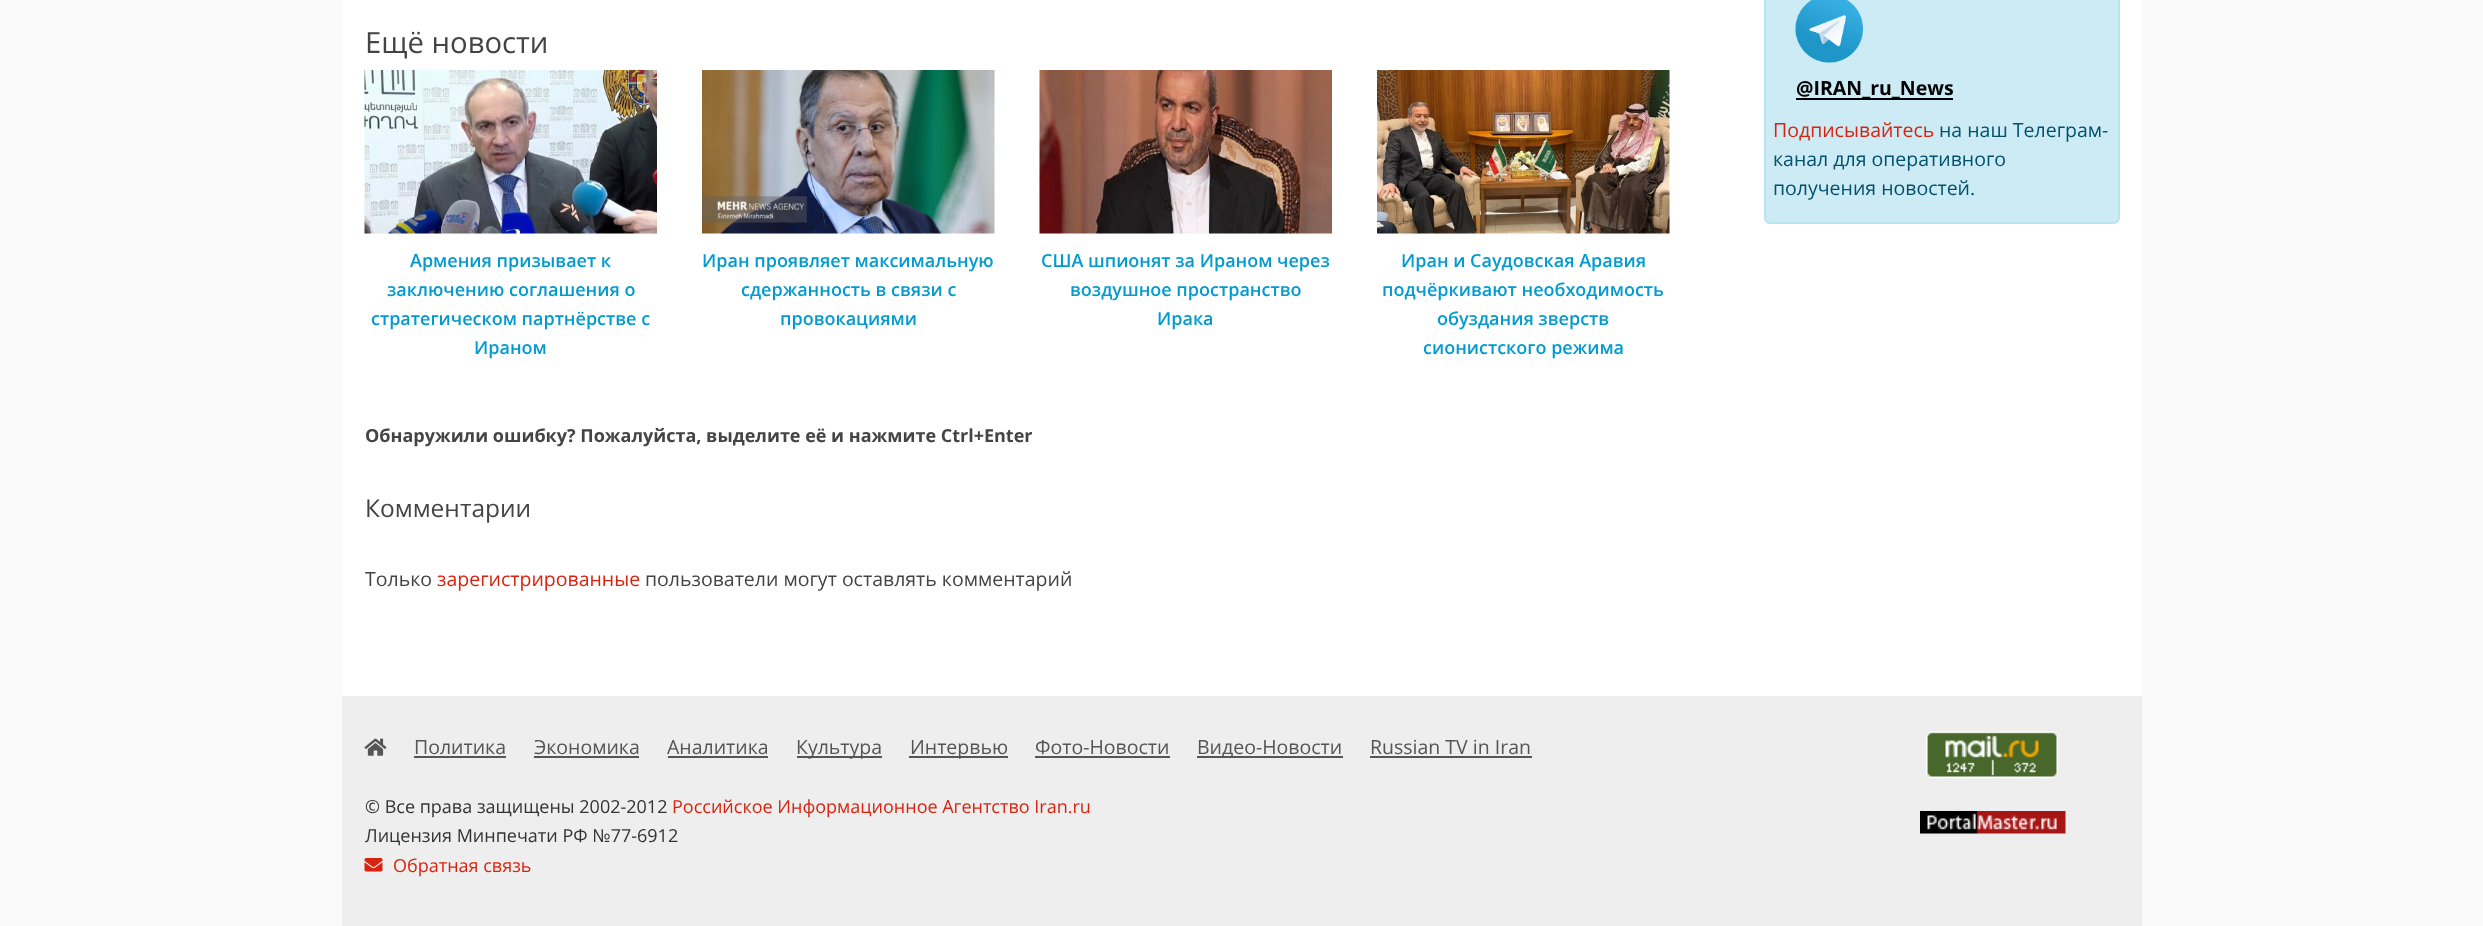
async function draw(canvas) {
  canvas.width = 2483
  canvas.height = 926
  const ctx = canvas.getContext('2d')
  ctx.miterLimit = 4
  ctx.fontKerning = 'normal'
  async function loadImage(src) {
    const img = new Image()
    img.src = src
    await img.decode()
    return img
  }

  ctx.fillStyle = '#fafafa'
  ctx.fillRect(0, 0, 2483, 926)
  ctx.fillStyle = '#fff'
  ctx.fillRect(342, 0, 1800, 696)
  ctx.font = '29.25px Open Sans'
  ctx.fillStyle = '#444'
  ctx.fillText('Ещё новости', 365, 53)
  ctx.drawImage(await loadImage('image0.png'), 364, 70, 293, 164)
  ctx.font = '600 18px Open Sans'
  ctx.fillStyle = '#029acf'
  ctx.fillText('Армения призывает к', 410, 267)
  ctx.fillText('заключению соглашения о', 387, 296)
  ctx.fillText('стратегическом партнёрстве с', 371, 325)
  ctx.fillText('Ираном', 474, 354)
  ctx.drawImage(await loadImage('image1.png'), 702, 70, 293, 164)
  ctx.fillText('Иран проявляет максимальную', 702, 267)
  ctx.fillText('сдержанность в связи с', 741, 296)
  ctx.fillText('провокациями', 780, 325)
  ctx.drawImage(await loadImage('image2.png'), 1039, 70, 293, 164)
  ctx.fillText('США шпионят за Ираном через', 1041, 267)
  ctx.fillText('воздушное пространство', 1070, 296)
  ctx.fillText('Ирака', 1157, 325)
  ctx.drawImage(await loadImage('image3.png'), 1377, 70, 293, 164)
  ctx.fillText('Иран и Саудовская Аравия', 1401, 267)
  ctx.fillText('подчёркивают необходимость', 1382, 296)
  ctx.fillText('обуздания зверств', 1437, 325)
  ctx.fillText('сионистского режима', 1423, 354)
  ctx.font = 'bold 18px Open Sans'
  ctx.fillStyle = '#444'
  ctx.fillText('Обнаружили ошибку? Пожалуйста, выделите её и нажмите Ctrl+Enter', 365, 442)
  ctx.font = '24.5px Open Sans'
  ctx.fillText('Комментарии', 365, 517)
  ctx.font = '19.5px Open Sans'
  ctx.fillText('Только', 365, 586)
  ctx.fillStyle = '#d9230f'
  ctx.fillText('зарегистрированные', 437, 586)
  ctx.fillStyle = '#444'
  ctx.fillText('пользователи могут оставлять комментарий', 645, 586)
  ctx.fillStyle = '#ccebf5'
  ctx.beginPath()
  ctx.roundRect(1765, -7, 354, 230, 5)
  ctx.fill()
  ctx.strokeStyle = '#b8e3f2'
  ctx.lineWidth = 2
  ctx.stroke()
  ctx.drawImage(await loadImage('image4.png'), 1795, 0, 68, 63)
  ctx.fillStyle = '#000'
  ctx.fillRect(1796, 98, 157, 2)
  ctx.font = 'bold 19.5px Open Sans'
  ctx.fillText('@IRAN_ru_News', 1796, 95)
  ctx.font = '19.5px Open Sans'
  ctx.fillStyle = '#d9230f'
  ctx.fillText('Подписывайтесь', 1773, 137)
  ctx.fillStyle = '#01506c'
  ctx.fillText('на наш Телеграм-', 1939, 137)
  ctx.fillText('канал для оперативного', 1773, 166)
  ctx.fillText('получения новостей.', 1773, 195)
  ctx.fillStyle = '#eee'
  ctx.fillRect(342, 696, 1800, 230)
  ctx.drawImage(await loadImage('image5.png'), 364, 738, 23, 18)
  ctx.fillStyle = '#555'
  ctx.fillText('Политика', 414, 754)
  ctx.fillRect(414, 756, 92, 2)
  ctx.fillText('Экономика', 534, 754)
  ctx.fillRect(534, 756, 105, 2)
  ctx.fillText('Аналитика', 667, 754)
  ctx.fillRect(668, 756, 100, 2)
  ctx.fillRect(797, 756, 85, 2)
  ctx.fillText('Культура', 796, 754)
  ctx.fillRect(909, 756, 99, 2)
  ctx.fillText('Интервью', 910, 754)
  ctx.fillText('Фото-Новости', 1035, 754)
  ctx.fillRect(1035, 756, 135, 2)
  ctx.fillRect(1197, 756, 146, 2)
  ctx.fillText('Видео-Новости', 1197, 754)
  ctx.fillText('Russian TV in Iran', 1370, 754)
  ctx.fillRect(1370, 756, 162, 2)
  ctx.font = '18px Open Sans'
  ctx.fillStyle = '#333'
  ctx.fillText('© Все права защищены 2002-2012', 365, 813)
  ctx.fillStyle = '#d9230f'
  ctx.fillText('Российское Информационное Агентство Iran.ru', 672, 813)
  ctx.fillStyle = '#333'
  ctx.fillText('Лицензия Минпечати РФ №77-6912', 365, 842)
  ctx.drawImage(await loadImage('image6.png'), 364, 858, 19, 14)
  ctx.fillStyle = '#d9230f'
  ctx.fillText('Обратная связь', 393, 872)
  ctx.drawImage(await loadImage('image7.png'), 1926, 731, 132, 47)
  ctx.drawImage(await loadImage('image8.png'), 1920, 811, 146, 23)
}

draw(document.querySelector('canvas'))
